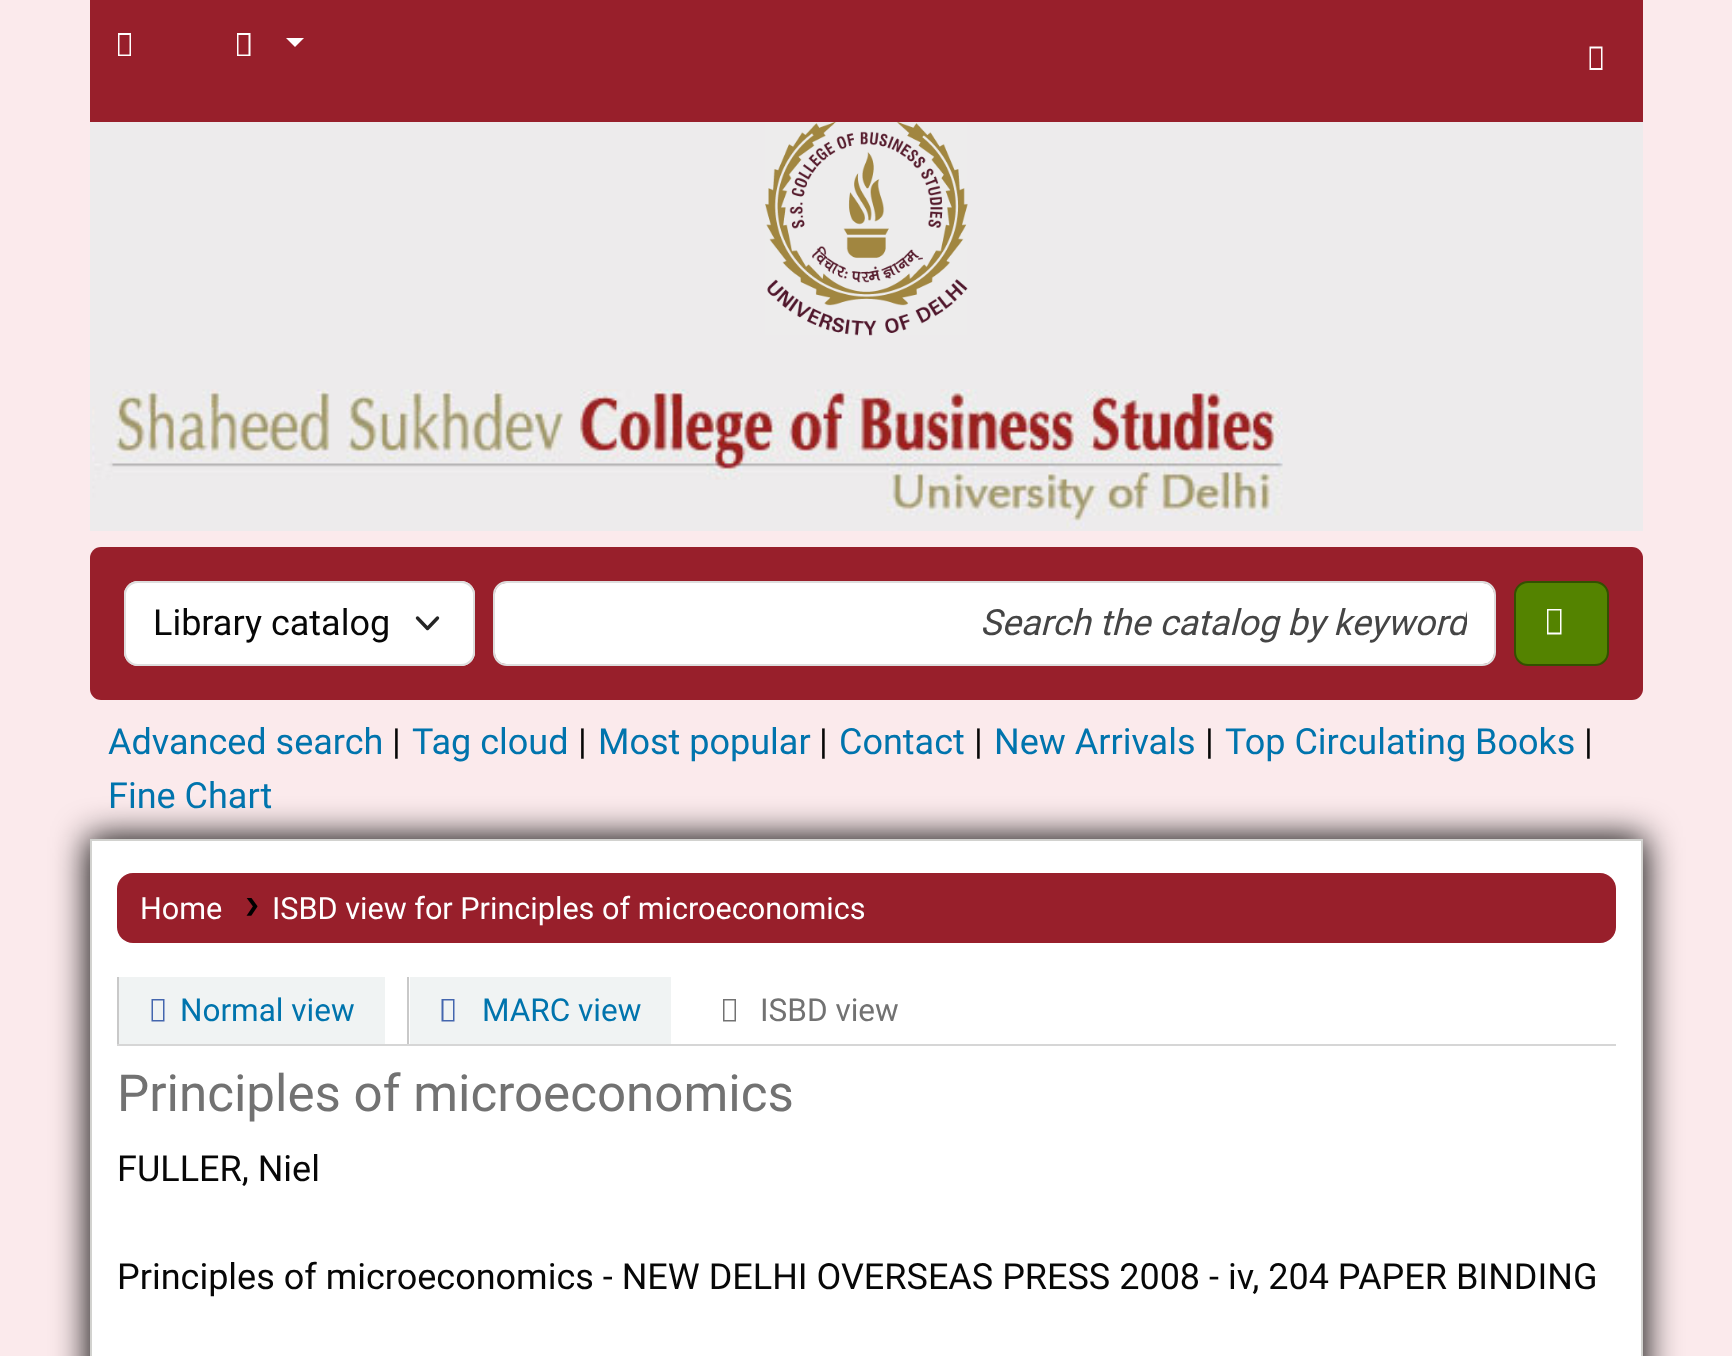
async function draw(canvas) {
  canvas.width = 1732
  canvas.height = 1356
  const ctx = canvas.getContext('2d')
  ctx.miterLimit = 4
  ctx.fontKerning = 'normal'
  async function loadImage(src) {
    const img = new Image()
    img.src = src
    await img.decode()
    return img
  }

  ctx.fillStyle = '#fbeaec'
  ctx.fillRect(0, 0, 1732, 1356)
  ctx.fillStyle = '#981f2b'
  ctx.fillRect(90, 0, 1553, 122)
  ctx.fillStyle = '#fff'
  ctx.beginPath()
  ctx.moveTo(118, 56)
  ctx.lineTo(118, 33)
  ctx.lineTo(131, 33)
  ctx.lineTo(131, 56)
  ctx.closePath()
  ctx.moveTo(119.5, 54.5)
  ctx.lineTo(129.5, 54.5)
  ctx.lineTo(129.5, 35)
  ctx.lineTo(119.5, 35)
  ctx.closePath()
  ctx.fill()
  ctx.beginPath()
  ctx.moveTo(237, 56)
  ctx.lineTo(237, 33)
  ctx.lineTo(250.5, 33)
  ctx.lineTo(250.5, 56)
  ctx.closePath()
  ctx.moveTo(238.5, 54.5)
  ctx.lineTo(248.5, 54.5)
  ctx.lineTo(248.5, 35)
  ctx.lineTo(238.5, 35)
  ctx.closePath()
  ctx.fill()
  ctx.beginPath()
  ctx.moveTo(286, 38)
  ctx.lineTo(304, 38)
  ctx.lineTo(295, 47)
  ctx.closePath()
  ctx.fill()
  ctx.beginPath()
  ctx.moveTo(1589.5, 70)
  ctx.lineTo(1589.5, 46.5)
  ctx.lineTo(1602.5, 46.5)
  ctx.lineTo(1602.5, 70)
  ctx.closePath()
  ctx.moveTo(1591, 68)
  ctx.lineTo(1601, 68)
  ctx.lineTo(1601, 48.5)
  ctx.lineTo(1591, 48.5)
  ctx.closePath()
  ctx.fill()
  ctx.fillStyle = '#edebec'
  ctx.fillRect(90, 122, 1553, 409)
  ctx.drawImage(await loadImage('image0.png'), 765, 122, 203, 214)
  ctx.drawImage(await loadImage('image1.png'), 92, 389, 1191, 140)
  ctx.fillStyle = '#981f2b'
  ctx.beginPath()
  ctx.roundRect(90, 547, 1553, 153, 11)
  ctx.fill()
  ctx.fillStyle = '#fff'
  ctx.beginPath()
  ctx.roundRect(124, 581, 351, 85, 14)
  ctx.fill()
  ctx.beginPath()
  ctx.moveTo(417.5, 618)
  ctx.lineTo(427.5, 628.5)
  ctx.lineTo(437.5, 618)
  ctx.strokeStyle = '#252525'
  ctx.lineWidth = 3.4
  ctx.lineCap = 'round'
  ctx.lineJoin = 'round'
  ctx.stroke()
  ctx.beginPath()
  ctx.roundRect(125, 582, 349, 83, 13)
  ctx.strokeStyle = '#ddd'
  ctx.lineWidth = 2
  ctx.lineJoin = 'miter'
  ctx.stroke()
  ctx.font = '36px Roboto'
  ctx.fillStyle = '#070707'
  ctx.fillText('Library catalog', 153, 635)
  ctx.fillStyle = '#fff'
  ctx.beginPath()
  ctx.roundRect(495, 583, 999, 81, 11)
  ctx.fill()
  ctx.beginPath()
  ctx.roundRect(494, 582, 1001, 83, 13)
  ctx.stroke()
  ctx.save()
  ctx.beginPath()
  ctx.rect(522, 601, 945, 43)
  ctx.clip()
  ctx.font = 'italic 36px Roboto'
  ctx.fillStyle = '#454545'
  ctx.fillText('Search the catalog by keyword', 980, 635)
  ctx.restore()
  ctx.fillStyle = '#548300'
  ctx.beginPath()
  ctx.roundRect(1515, 582, 93, 83, 13)
  ctx.fill()
  ctx.strokeStyle = '#335000'
  ctx.stroke()
  ctx.fillStyle = '#fff'
  ctx.beginPath()
  ctx.moveTo(1547, 634.5)
  ctx.lineTo(1547, 609)
  ctx.lineTo(1561.5, 609)
  ctx.lineTo(1561.5, 634.5)
  ctx.closePath()
  ctx.moveTo(1548.5, 632.5)
  ctx.lineTo(1560, 632.5)
  ctx.lineTo(1560, 610.5)
  ctx.lineTo(1548.5, 610.5)
  ctx.closePath()
  ctx.fill()
  ctx.fillStyle = '#0074ad'
  ctx.fillText('Advanced search', 108, 754)
  ctx.fillStyle = '#070707'
  ctx.fillText('|', 392, 754)
  ctx.fillStyle = '#0074ad'
  ctx.fillText('Tag cloud', 412, 754)
  ctx.fillStyle = '#070707'
  ctx.fillText('|', 578, 754)
  ctx.fillStyle = '#0074ad'
  ctx.fillText('Most popular', 598, 754)
  ctx.fillStyle = '#070707'
  ctx.fillText('|', 819, 754)
  ctx.fillStyle = '#0074ad'
  ctx.fillText('Contact', 839, 754)
  ctx.fillStyle = '#070707'
  ctx.fillText('|', 974, 754)
  ctx.fillStyle = '#0074ad'
  ctx.fillText('New Arrivals', 994, 754)
  ctx.fillStyle = '#070707'
  ctx.fillText('|', 1205, 754)
  ctx.fillStyle = '#0074ad'
  ctx.fillText('Top Circulating Books', 1225, 754)
  ctx.fillStyle = '#070707'
  ctx.fillText('|', 1584, 754)
  ctx.filter = 'blur(17px)'
  ctx.beginPath()
  ctx.rect(88, 837, 1557, 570)
  ctx.fill()
  ctx.filter = 'none'
  ctx.fillStyle = '#0074ad'
  ctx.fillText('Fine Chart', 108, 808)
  ctx.fillStyle = '#fff'
  ctx.beginPath()
  ctx.rect(91, 840, 1551, 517)
  ctx.fill()
  ctx.strokeStyle = '#d2d2cf'
  ctx.stroke()
  ctx.fillStyle = '#981f2b'
  ctx.beginPath()
  ctx.roundRect(117, 873, 1499, 70, 16)
  ctx.fill()
  ctx.font = '30.6px Roboto'
  ctx.fillStyle = '#fff'
  ctx.fillText('Home', 140, 919)
  ctx.drawImage(await loadImage('image2.png'), 246, 898, 12, 18)
  ctx.fillText('ISBD view for Principles of microeconomics', 272, 919)
  ctx.fillStyle = '#d6d6d6'
  ctx.fillRect(117, 1044, 1499, 2)
  ctx.fillStyle = '#f0f3f3'
  ctx.fillRect(119, 977, 266, 67)
  ctx.fillStyle = '#c9c9c9'
  ctx.fillRect(117, 977, 2, 67)
  ctx.fillStyle = '#4466ae'
  ctx.beginPath()
  ctx.moveTo(151.5, 1021.5)
  ctx.lineTo(151.5, 999)
  ctx.lineTo(164.5, 999)
  ctx.lineTo(164.5, 1021.5)
  ctx.closePath()
  ctx.moveTo(153, 1020)
  ctx.lineTo(163, 1020)
  ctx.lineTo(163, 1000.5)
  ctx.lineTo(153, 1000.5)
  ctx.closePath()
  ctx.fill()
  ctx.font = '31.5px Roboto'
  ctx.fillStyle = '#0074ad'
  ctx.fillText('Normal view', 180, 1021)
  ctx.fillStyle = '#f0f3f3'
  ctx.fillRect(410, 977, 261, 67)
  ctx.fillStyle = '#c9c9c9'
  ctx.fillRect(407, 977, 2, 67)
  ctx.fillStyle = '#4466ae'
  ctx.beginPath()
  ctx.moveTo(441.5, 1021.5)
  ctx.lineTo(441.5, 999)
  ctx.lineTo(454.5, 999)
  ctx.lineTo(454.5, 1021.5)
  ctx.closePath()
  ctx.moveTo(443.5, 1020)
  ctx.lineTo(453, 1020)
  ctx.lineTo(453, 1000.5)
  ctx.lineTo(443.5, 1000.5)
  ctx.closePath()
  ctx.fill()
  ctx.fillStyle = '#0074ad'
  ctx.fillText('MARC view', 482, 1021)
  ctx.fillStyle = '#727272'
  ctx.beginPath()
  ctx.moveTo(723, 1021.5)
  ctx.lineTo(723, 999)
  ctx.lineTo(736, 999)
  ctx.lineTo(736, 1021.5)
  ctx.closePath()
  ctx.moveTo(724.5, 1020)
  ctx.lineTo(734.5, 1020)
  ctx.lineTo(734.5, 1000.5)
  ctx.lineTo(724.5, 1000.5)
  ctx.closePath()
  ctx.fill()
  ctx.fillText('ISBD view', 760, 1021)
  ctx.font = '51.1px Roboto'
  ctx.fillText('Principles of microeconomics', 117, 1111)
  ctx.font = '36px Roboto'
  ctx.fillStyle = '#070707'
  ctx.fillText('FULLER, Niel', 117, 1181)
  ctx.fillText('Principles of microeconomics - NEW DELHI OVERSEAS PRESS 2008 - iv, 204 PAPER BINDING', 117, 1289)
}

draw(document.querySelector('canvas'))
